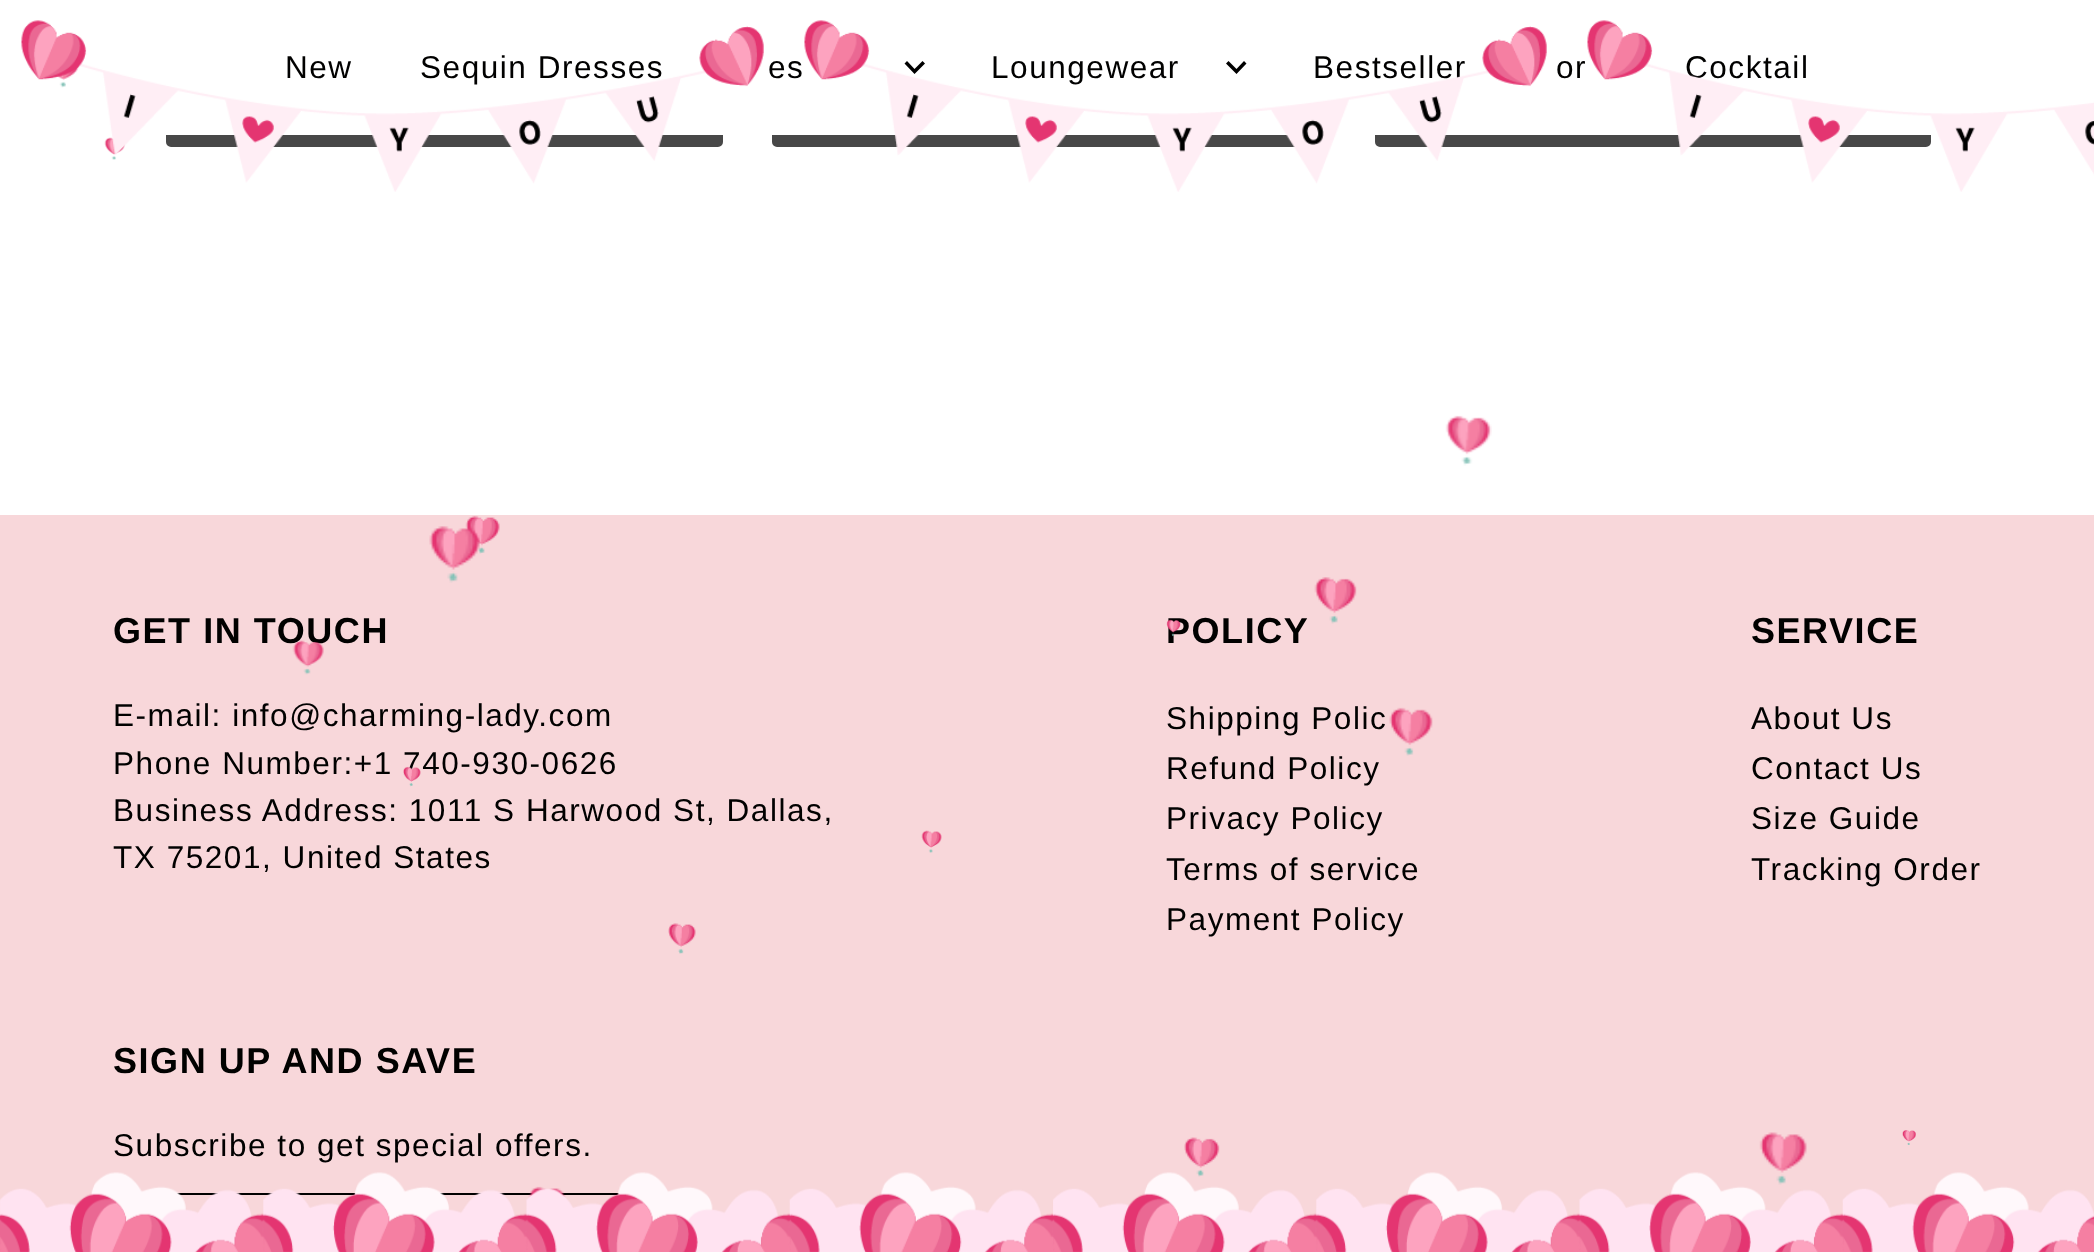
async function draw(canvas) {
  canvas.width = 2094
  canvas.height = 1252
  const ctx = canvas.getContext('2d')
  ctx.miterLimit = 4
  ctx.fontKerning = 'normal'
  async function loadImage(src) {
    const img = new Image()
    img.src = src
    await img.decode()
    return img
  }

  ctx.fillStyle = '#fff'
  ctx.fillRect(0, 0, 2094, 1252)
  ctx.fillStyle = '#484848'
  ctx.beginPath()
  ctx.roundRect(165, 42, 559, 106, 6)
  ctx.fill()
  ctx.strokeStyle = '#fff'
  ctx.lineWidth = 2
  ctx.stroke()
  ctx.beginPath()
  ctx.roundRect(771, 42, 556, 106, 6)
  ctx.fill()
  ctx.stroke()
  ctx.save()
  ctx.beginPath()
  ctx.rect(164, 0, 1767, 149)
  ctx.clip()
  ctx.beginPath()
  ctx.roundRect(1374, 42, 558, 106, 6)
  ctx.fill()
  ctx.stroke()
  ctx.restore()
  ctx.drawImage(await loadImage('image1.png'), 56, 65, 23, 23)
  ctx.fillStyle = '#fff'
  ctx.fillRect(164, 41, 1767, 94)
  ctx.letterSpacing = '1.55px'
  ctx.font = '31.5px Arimo'
  ctx.fillStyle = '#010100'
  ctx.fillText('New', 285, 78)
  ctx.fillText('Sequin Dresses', 420, 78)
  ctx.fillText('es', 768, 78)
  ctx.fillStyle = '#000'
  ctx.beginPath()
  ctx.moveTo(922.5, 61)
  ctx.lineTo(914.5, 69)
  ctx.lineTo(907, 61)
  ctx.lineTo(904.5, 63.5)
  ctx.lineTo(914.5, 74)
  ctx.lineTo(925, 63.5)
  ctx.closePath()
  ctx.fill()
  ctx.fillStyle = '#010100'
  ctx.fillText('Loungewear', 991, 78)
  ctx.fillStyle = '#000'
  ctx.beginPath()
  ctx.moveTo(1244, 61)
  ctx.lineTo(1236.5, 69)
  ctx.lineTo(1228.5, 61)
  ctx.lineTo(1226, 63.5)
  ctx.lineTo(1236.5, 74)
  ctx.lineTo(1246.5, 63.5)
  ctx.closePath()
  ctx.fill()
  ctx.fillStyle = '#010100'
  ctx.fillText('Bestseller', 1313, 78)
  ctx.fillText('or', 1556, 78)
  ctx.fillText('Cocktail', 1685, 78)
  ctx.drawImage(await loadImage('image2.png'), 104, 137, 21, 23)
  ctx.drawImage(await loadImage('image0.png'), 21, 20, 2073, 172)
  ctx.drawImage(await loadImage('image3.png'), 1445, 415, 47, 51)
  ctx.fillStyle = '#f8d7da'
  ctx.fillRect(0, 515, 2094, 737)
  ctx.drawImage(await loadImage('image5.png'), 465, 515, 35, 39)
  ctx.drawImage(await loadImage('image4.png'), 429, 526, 51, 57)
  ctx.drawImage(await loadImage('image6.png'), 1314, 577, 43, 47)
  ctx.font = 'bold 36px Arimo'
  ctx.fillStyle = '#010100'
  ctx.fillText('GET IN TOUCH', 113, 643)
  ctx.font = '31.5px Arimo'
  ctx.fillText('E-mail: info@charming-lady.com', 113, 726)
  ctx.fillText('Phone Number:+1 740-930-0626', 113, 774)
  ctx.fillText('Business Address: 1011 S Harwood St, Dallas,', 113, 821)
  ctx.fillText('TX 75201, United States', 113, 868)
  ctx.font = 'bold 36px Arimo'
  ctx.fillText('POLICY', 1166, 643)
  ctx.font = '31.5px Arimo'
  ctx.fillText('Shipping Polic', 1166, 729)
  ctx.fillText('Refund Policy', 1166, 779)
  ctx.fillText('Privacy Policy', 1166, 829)
  ctx.fillText('Terms of service', 1166, 880)
  ctx.fillText('Payment Policy', 1166, 930)
  ctx.font = 'bold 36px Arimo'
  ctx.fillText('SERVICE', 1751, 643)
  ctx.font = '31.5px Arimo'
  ctx.fillText('About Us', 1751, 729)
  ctx.fillText('Contact Us', 1751, 779)
  ctx.fillText('Size Guide', 1751, 829)
  ctx.fillText('Tracking Order', 1751, 880)
  ctx.font = 'bold 36px Arimo'
  ctx.fillText('SIGN UP AND SAVE', 113, 1073)
  ctx.font = '31.5px Arimo'
  ctx.fillText('Subscribe to get special offers.', 113, 1156)
  ctx.strokeStyle = '#010100'
  ctx.strokeRect(114, 1194, 556, 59)
  ctx.drawImage(await loadImage('image7.png'), 1166, 619, 15, 18)
  ctx.drawImage(await loadImage('image8.png'), 292, 640, 32, 35)
  ctx.drawImage(await loadImage('image9.png'), 1389, 707, 44, 49)
  ctx.drawImage(await loadImage('image10.png'), 403, 766, 18, 21)
  ctx.drawImage(await loadImage('image11.png'), 921, 830, 21, 23)
  ctx.drawImage(await loadImage('image12.png'), 668, 923, 28, 31)
  ctx.drawImage(await loadImage('image13.png'), 1184, 1137, 36, 40)
  ctx.drawImage(await loadImage('image14.png'), 1759, 1132, 48, 53)
  ctx.drawImage(await loadImage('image15.png'), 1902, 1130, 14, 15)
  ctx.drawImage(await loadImage('image17.png'), 528, 1186, 38, 14)
  ctx.drawImage(await loadImage('image16.png'), 0, 1172, 2094, 80)
}

draw(document.querySelector('canvas'))
